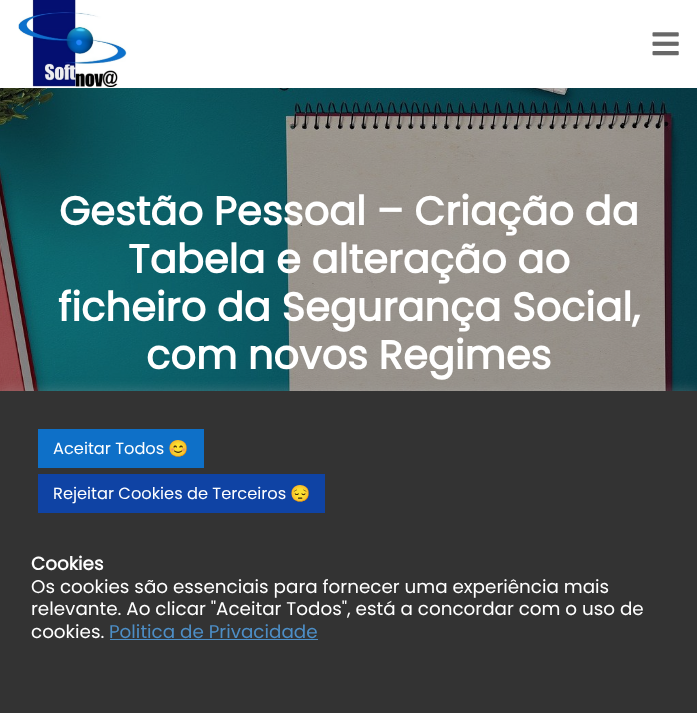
async function draw(canvas) {
  canvas.width = 697
  canvas.height = 713
  const ctx = canvas.getContext('2d')
  ctx.miterLimit = 4
  ctx.fontKerning = 'normal'
  async function loadImage(src) {
    const img = new Image()
    img.src = src
    await img.decode()
    return img
  }

  ctx.fillStyle = '#fff'
  ctx.fillRect(0, 0, 697, 713)
  ctx.drawImage(await loadImage('image0.png'), 18, 0, 109, 88)
  ctx.drawImage(await loadImage('image1.png'), 652, 32, 27, 24)
  ctx.drawImage(await loadImage('image2.png'), 0, 88, 697, 303)
  ctx.font = 'bold 40px Poppins'
  ctx.fillText('Gestão Pessoal – Criação da', 59, 225)
  ctx.fillText('Tabela e alteração ao', 128, 273)
  ctx.fillText('ficheiro da Segurança Social,', 58, 321)
  ctx.fillText('com novos Regimes', 146, 369)
  ctx.fillStyle = '#acabab4d'
  ctx.filter = 'blur(6px)'
  ctx.beginPath()
  ctx.rect(0, 390, 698, 323)
  ctx.fill()
  ctx.filter = 'none'
  ctx.fillStyle = '#333'
  ctx.fillRect(0, 391, 697, 322)
  ctx.fillStyle = '#0e70c8'
  ctx.fillRect(38, 429, 166, 39)
  ctx.font = '16.25px Poppins'
  ctx.fillStyle = '#fff'
  ctx.fillText('Aceitar Todos', 53, 454)
  ctx.font = '16.25px Noto Color Emoji'
  ctx.fillText('😊', 168, 454)
  ctx.fillStyle = '#0f43a4'
  ctx.fillRect(38, 474, 287, 39)
  ctx.font = '16.25px Poppins'
  ctx.fillStyle = '#fff'
  ctx.fillText('Rejeitar Cookies de Terceiros', 53, 499)
  ctx.font = '16.25px Noto Color Emoji'
  ctx.fillText('😔', 290, 499)
  ctx.font = 'bold 18.35px Poppins'
  ctx.fillText('Cookies', 31, 570)
  ctx.font = '18.35px Poppins'
  ctx.fillText('Os cookies são essenciais para fornecer uma experiência mais', 31, 593)
  ctx.fillText('relevante. Ao clicar "Aceitar Todos", está a concordar com o uso de', 31, 615)
  ctx.fillText('cookies.', 31, 638)
  ctx.fillStyle = '#4d8ec6'
  ctx.fillText('Politica de Privacidade', 109, 638)
  ctx.fillRect(110, 639, 208, 1)
}

draw(document.querySelector('canvas'))
